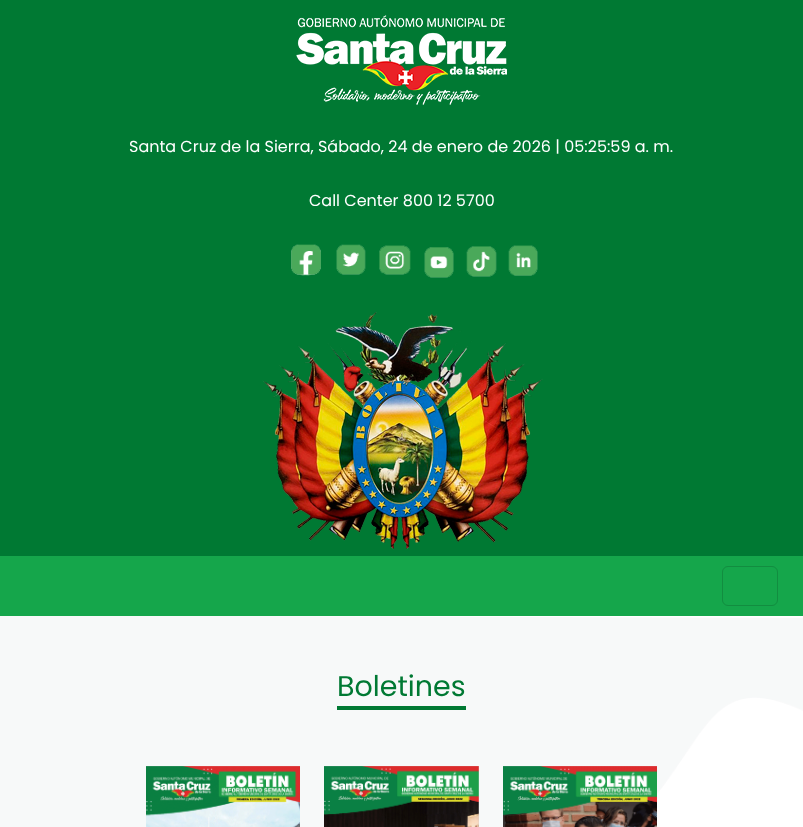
async function draw(canvas) {
  canvas.width = 803
  canvas.height = 827
  const ctx = canvas.getContext('2d')
  ctx.miterLimit = 4
  ctx.fontKerning = 'normal'
  async function loadImage(src) {
    const img = new Image()
    img.src = src
    await img.decode()
    return img
  }

  ctx.fillStyle = '#fff'
  ctx.fillRect(0, 0, 803, 827)
  ctx.fillStyle = '#007933'
  ctx.fillRect(0, 0, 803, 556)
  ctx.drawImage(await loadImage('image0.png'), 296, 15, 211, 90)
  ctx.font = '16px Poppins'
  ctx.fillStyle = '#fff'
  ctx.fillText('Santa Cruz de la Sierra, Sábado, 24 de enero de 2026 | 05:25:59 a. m.', 129, 152)
  ctx.fillText('Call Center 800 12 5700', 309, 206)
  ctx.drawImage(await loadImage('image1.png'), 291, 244, 30, 32)
  ctx.drawImage(await loadImage('image2.png'), 336, 244, 30, 31)
  ctx.drawImage(await loadImage('image3.png'), 379, 245, 32, 30)
  ctx.drawImage(await loadImage('image4.png'), 424, 247, 30, 31)
  ctx.drawImage(await loadImage('image5.png'), 466, 246, 31, 31)
  ctx.drawImage(await loadImage('image6.png'), 508, 245, 30, 31)
  ctx.drawImage(await loadImage('image7.png'), 262, 312, 281, 238)
  ctx.fillStyle = '#15a64b'
  ctx.fillRect(0, 556, 803, 60)
  ctx.beginPath()
  ctx.roundRect(722.5, 566.5, 55, 39, 5.5)
  ctx.strokeStyle = '#128d40'
  ctx.stroke()
  ctx.drawImage(await loadImage('image8.png'), 0, 616, 803, 211)
  ctx.font = '28.5px Poppins'
  ctx.fillStyle = '#007933'
  ctx.fillText('Boletines', 337, 696)
  ctx.fillRect(337, 706, 129, 4)
  ctx.drawImage(await loadImage('image9.png'), 146, 766, 154, 61)
  ctx.drawImage(await loadImage('image10.png'), 324, 766, 155, 61)
  ctx.drawImage(await loadImage('image11.png'), 503, 766, 154, 61)
}

draw(document.querySelector('canvas'))
